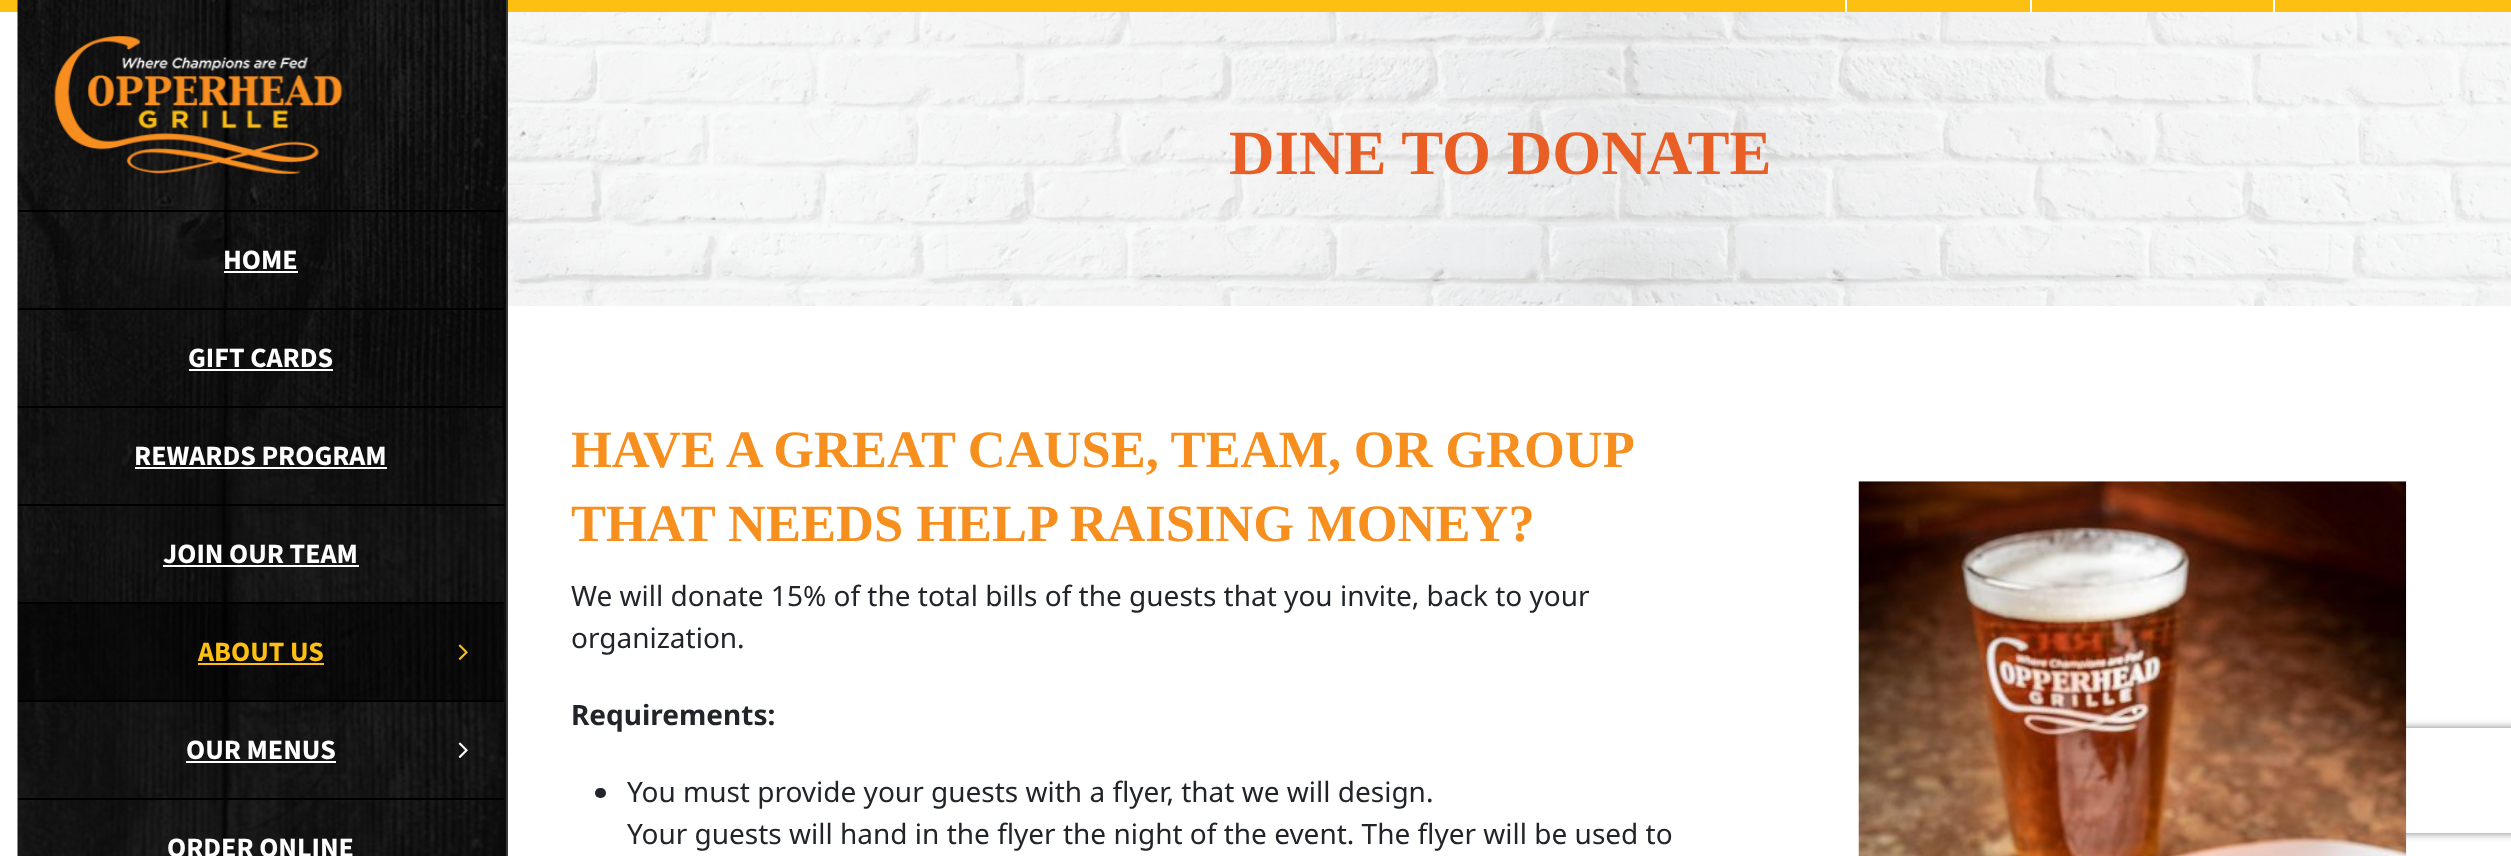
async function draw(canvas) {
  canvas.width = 2511
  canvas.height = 856
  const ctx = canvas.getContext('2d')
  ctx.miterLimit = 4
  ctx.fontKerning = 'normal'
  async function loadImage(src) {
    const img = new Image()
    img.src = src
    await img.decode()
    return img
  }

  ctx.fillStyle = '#fff'
  ctx.fillRect(0, 0, 2511, 856)
  ctx.fillStyle = '#fdbf11'
  ctx.fillRect(0, 0, 2511, 12)
  ctx.fillStyle = '#fff'
  ctx.fillRect(1845, 0, 2, 12)
  ctx.fillRect(2030, 0, 2, 12)
  ctx.fillRect(2273, 0, 2, 12)
  ctx.drawImage(await loadImage('image0.png'), 508, 12, 2003, 294)
  ctx.font = 'bold 63px Tinos'
  ctx.fillStyle = '#e95e25'
  ctx.fillText('DINE TO DONATE', 1229, 174)
  ctx.drawImage(await loadImage('image1.png'), 17, 0, 489, 856)
  ctx.fillStyle = '#3a3a3a'
  ctx.fillRect(506, 0, 2, 856)
  ctx.drawImage(await loadImage('image2.png'), 54, 36, 289, 138)
  ctx.fillStyle = '#000'
  ctx.fillRect(18, 210, 486, 2)
  ctx.fillRect(18, 308, 486, 2)
  ctx.font = 'bold 28px "Source Sans 3"'
  ctx.fillStyle = '#fff'
  ctx.fillText('HOME', 223, 269)
  ctx.fillRect(224, 271, 74, 2)
  ctx.fillStyle = '#000'
  ctx.fillRect(18, 406, 486, 2)
  ctx.fillStyle = '#fff'
  ctx.fillText('GIFT CARDS', 188, 367)
  ctx.fillRect(189, 369, 144, 2)
  ctx.fillStyle = '#000'
  ctx.fillRect(18, 504, 486, 2)
  ctx.fillStyle = '#fff'
  ctx.fillText('REWARDS PROGRAM', 134, 465)
  ctx.fillRect(135, 467, 252, 2)
  ctx.fillStyle = '#000'
  ctx.fillRect(18, 602, 486, 2)
  ctx.fillStyle = '#fff'
  ctx.fillText('JOIN OUR TEAM', 163, 563)
  ctx.fillRect(163, 565, 196, 2)
  ctx.fillStyle = '#00000080'
  ctx.fillRect(18, 604, 486, 96)
  ctx.fillStyle = '#000'
  ctx.fillRect(18, 700, 486, 2)
  ctx.fillStyle = '#fdbf11'
  ctx.fillText('ABOUT US', 198, 661)
  ctx.fillRect(198, 663, 126, 2)
  ctx.drawImage(await loadImage('image3.png'), 458, 644, 10, 16)
  ctx.fillStyle = '#000'
  ctx.fillRect(18, 798, 486, 2)
  ctx.fillStyle = '#fff'
  ctx.fillText('OUR MENUS', 186, 759)
  ctx.fillRect(186, 761, 150, 2)
  ctx.drawImage(await loadImage('image4.png'), 458, 742, 10, 16)
  ctx.fillText('ORDER ONLINE', 167, 857)
  ctx.wordSpacing = '-0.5px'
  ctx.font = 'bold 52.5px Tinos'
  ctx.fillStyle = '#f78f1e'
  ctx.fillText('HAVE A GREAT CAUSE, TEAM, OR GROUP', 571, 467)
  ctx.wordSpacing = '0px'
  ctx.fillText('THAT NEEDS HELP RAISING MONEY?', 571, 541)
  ctx.font = '28px Noto Sans'
  ctx.fillStyle = '#212529'
  ctx.fillText('We will donate 15% of the total bills of the guests that you invite, back to your', 571, 606)
  ctx.fillText('organization.', 571, 648)
  ctx.font = 'bold 28px Noto Sans'
  ctx.fillText('Requirements:', 571, 725)
  ctx.beginPath()
  ctx.roundRect(595, 788, 11, 10, 5)
  ctx.fill()
  ctx.font = '28px Noto Sans'
  ctx.fillText('You must provide your guests with a flyer, that we will design.', 627, 802)
  ctx.fillText('Your guests will hand in the flyer the night of the event. The flyer will be used to', 627, 844)
  ctx.save()
  ctx.beginPath()
  ctx.moveTo(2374, 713)
  ctx.lineTo(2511, 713)
  ctx.lineTo(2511, 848)
  ctx.lineTo(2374, 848)
  ctx.closePath()
  ctx.moveTo(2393, 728)
  ctx.lineTo(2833, 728)
  ctx.bezierCurveTo(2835, 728, 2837, 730, 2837, 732)
  ctx.lineTo(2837, 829)
  ctx.bezierCurveTo(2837, 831, 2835, 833, 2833, 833)
  ctx.lineTo(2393, 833)
  ctx.bezierCurveTo(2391, 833, 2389, 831, 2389, 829)
  ctx.lineTo(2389, 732)
  ctx.bezierCurveTo(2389, 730, 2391, 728, 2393, 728)
  ctx.closePath()
  ctx.clip('evenodd')
  ctx.fillStyle = '#808080'
  ctx.filter = 'blur(4.5px)'
  ctx.beginPath()
  ctx.roundRect(2389, 728, 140, 105, 4)
  ctx.fill()
  ctx.filter = 'none'
  ctx.restore()
  ctx.drawImage(await loadImage('image5.png'), 1858, 481, 549, 375)
}

draw(document.querySelector('canvas'))
